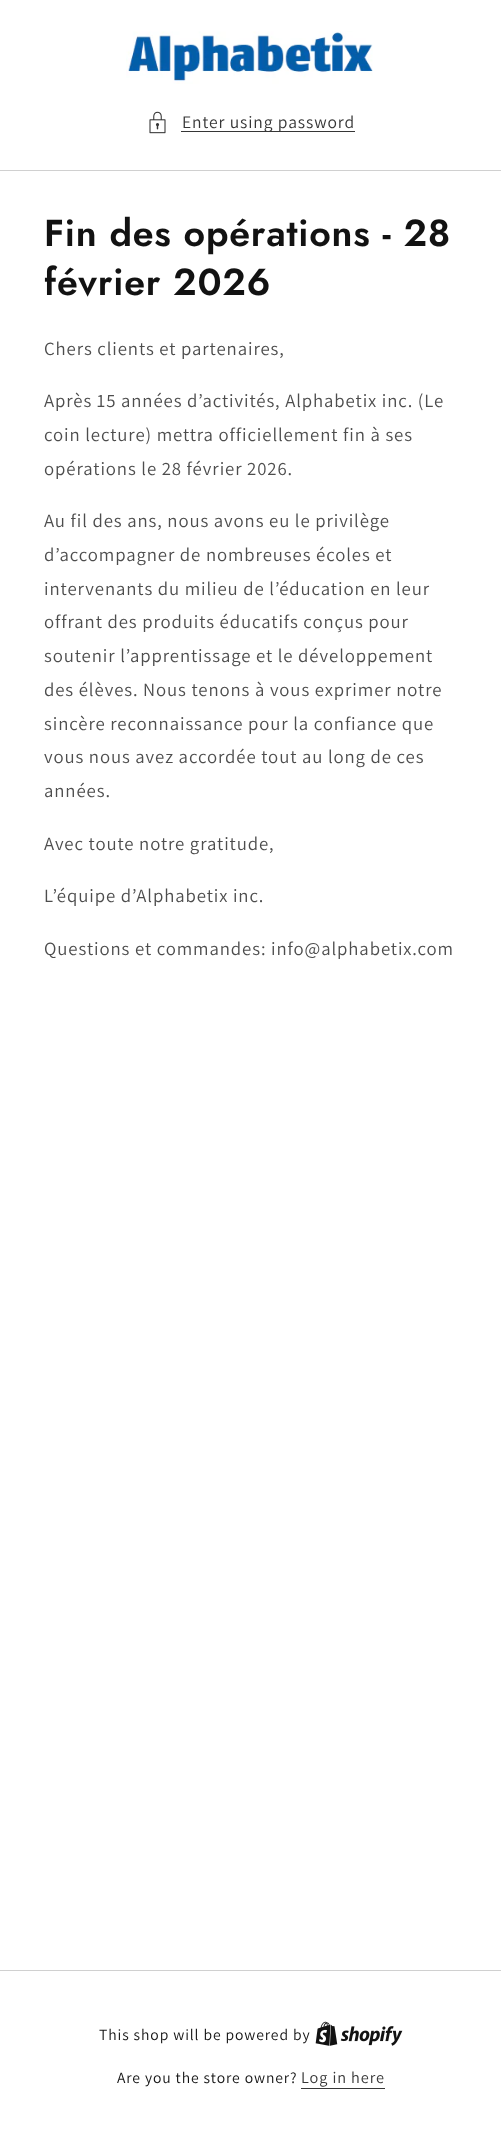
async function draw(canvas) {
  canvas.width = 501
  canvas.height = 2142
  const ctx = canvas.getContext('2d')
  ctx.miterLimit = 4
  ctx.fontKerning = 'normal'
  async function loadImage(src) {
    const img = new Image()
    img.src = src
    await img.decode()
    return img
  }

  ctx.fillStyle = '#fff'
  ctx.fillRect(0, 0, 501, 2142)
  ctx.drawImage(await loadImage('image0.png'), 126, 31, 247, 53)
  ctx.drawImage(await loadImage('image1.png'), 149, 111, 17, 23)
  ctx.fillStyle = '#363636'
  ctx.fillRect(181, 131, 174, 1)
  ctx.letterSpacing = '0.9px'
  ctx.font = '17.5px Assistant'
  ctx.fillText('Enter using password', 182, 128)
  ctx.fillStyle = '#d0d0d0'
  ctx.fillRect(0, 170, 501, 1)
  ctx.letterSpacing = '0.75px'
  ctx.font = '600 37.5px Jost'
  ctx.fillStyle = '#121212'
  ctx.fillText('Fin des opérations - 28', 44, 246)
  ctx.fillText('février 2026', 44, 295)
  ctx.letterSpacing = '0.9px'
  ctx.font = '18.75px Assistant'
  ctx.fillStyle = '#4d4d4d'
  ctx.fillText('Chers clients et partenaires,', 44, 355)
  ctx.fillText('Après 15 années d’activités, Alphabetix inc. (Le', 44, 407)
  ctx.fillText('coin lecture) mettra officiellement fin à ses', 44, 441)
  ctx.fillText('opérations le 28 février 2026.', 44, 475)
  ctx.fillText('Au fil des ans, nous avons eu le privilège', 44, 527)
  ctx.fillText('d’accompagner de nombreuses écoles et', 44, 561)
  ctx.fillText('intervenants du milieu de l’éducation en leur', 44, 595)
  ctx.fillText('offrant des produits éducatifs conçus pour', 44, 628)
  ctx.fillText('soutenir l’apprentissage et le développement', 44, 662)
  ctx.fillText('des élèves. Nous tenons à vous exprimer notre', 44, 696)
  ctx.fillText('sincère reconnaissance pour la confiance que', 44, 730)
  ctx.fillText('vous nous avez accordée tout au long de ces', 44, 763)
  ctx.fillText('années.', 44, 797)
  ctx.fillText('Avec toute notre gratitude,', 44, 850)
  ctx.fillText('L’équipe d’Alphabetix inc.', 44, 902)
  ctx.fillText('Questions et commandes: info@alphabetix.com', 44, 955)
  ctx.fillStyle = '#d0d0d0'
  ctx.fillRect(0, 1970, 501, 1)
  ctx.font = '15.6px Assistant'
  ctx.fillStyle = '#121212'
  ctx.fillText('This shop will be powered by', 99, 2040)
  ctx.drawImage(await loadImage('image2.png'), 315, 2021, 88, 25)
  ctx.fillText('Are you the store owner?', 117, 2083)
  ctx.font = '16.25px Assistant'
  ctx.fillStyle = '#363636'
  ctx.fillText('Log in here', 301, 2083)
  ctx.fillRect(301, 2088, 84, 1)
}

draw(document.querySelector('canvas'))
